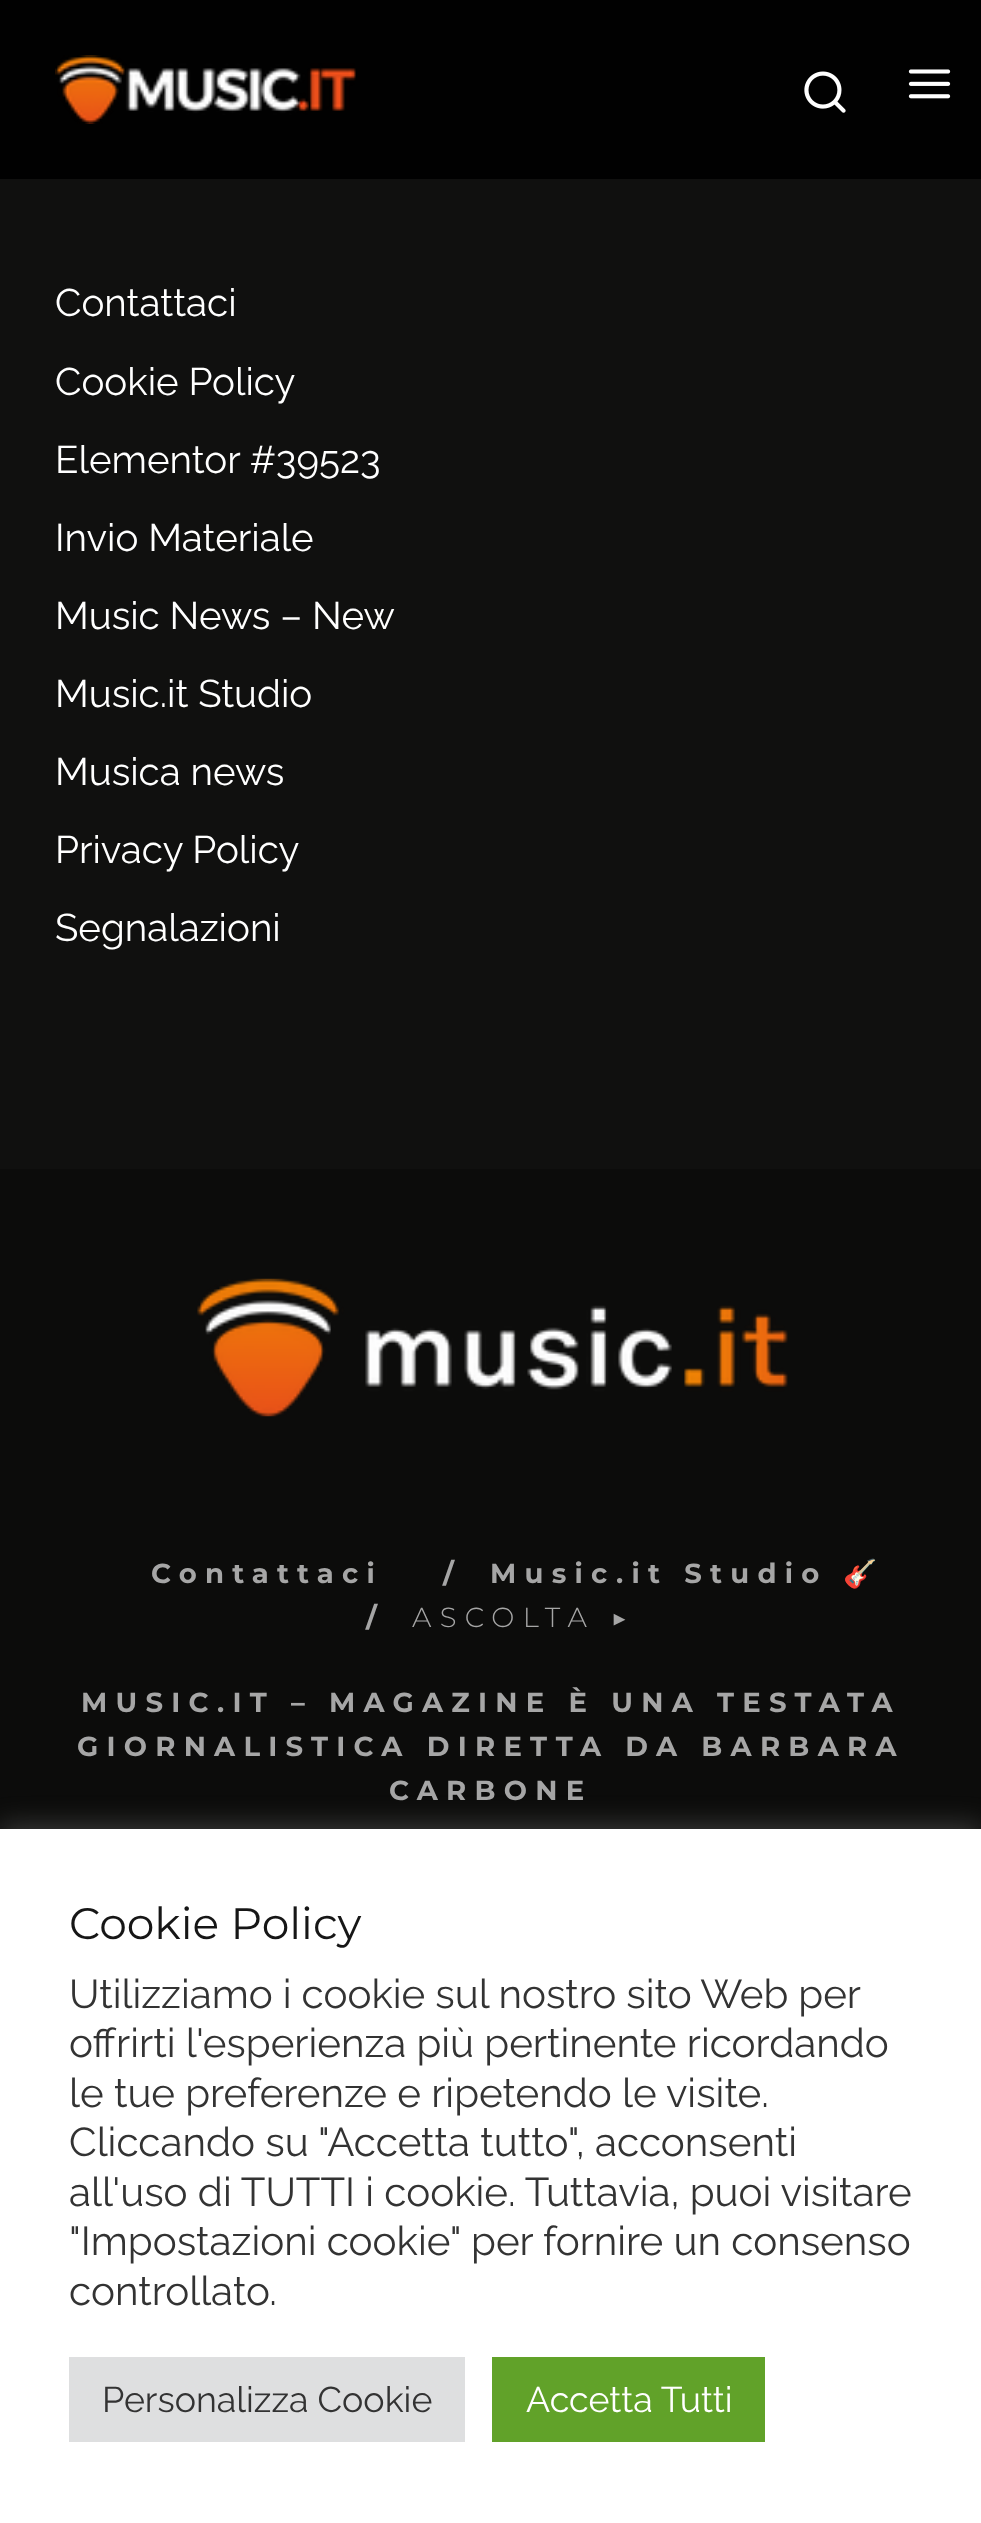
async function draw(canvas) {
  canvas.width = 981
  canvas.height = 2523
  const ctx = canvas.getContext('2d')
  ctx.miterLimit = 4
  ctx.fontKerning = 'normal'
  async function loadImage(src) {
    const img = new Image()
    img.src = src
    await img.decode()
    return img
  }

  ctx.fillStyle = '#10100f'
  ctx.fillRect(0, 0, 981, 2523)
  ctx.fillStyle = '#010101'
  ctx.fillRect(0, 0, 981, 179)
  ctx.drawImage(await loadImage('image0.png'), 55, 55, 301, 69)
  ctx.drawImage(await loadImage('image1.png'), 804, 71, 42, 42)
  ctx.drawImage(await loadImage('image2.png'), 908, 69, 43, 30)
  ctx.font = '38.5px Raleway'
  ctx.fillStyle = '#fff'
  ctx.fillText('Contattaci', 55, 316)
  ctx.fillText('Cookie Policy', 55, 395)
  ctx.fillText('Elementor #39523', 55, 473)
  ctx.fillText('Invio Materiale', 55, 551)
  ctx.fillText('Music News – New', 55, 629)
  ctx.fillText('Music.it Studio', 55, 707)
  ctx.fillText('Musica news', 55, 785)
  ctx.fillText('Privacy Policy', 55, 863)
  ctx.fillText('Segnalazioni', 55, 941)
  ctx.fillStyle = '#0c0c0b'
  ctx.fillRect(0, 1169, 981, 660)
  ctx.drawImage(await loadImage('image3.png'), 197, 1278, 591, 139)
  ctx.letterSpacing = '8.25px'
  ctx.font = 'bold 27.5px Montserrat'
  ctx.fillStyle = '#a6a6a6'
  ctx.fillText('Contattaci', 151, 1583)
  ctx.fillText('/', 443, 1583)
  ctx.fillText('Music.it Studio', 490, 1583)
  ctx.font = 'bold 27.5px Noto Color Emoji'
  ctx.fillText('🎸', 843, 1583)
  ctx.font = 'bold 27.5px Montserrat'
  ctx.fillText('/', 366, 1627)
  ctx.font = '300 27.5px Montserrat'
  ctx.fillText('ASCOLTA ▶︎', 412, 1627)
  ctx.font = 'bold 27.5px Montserrat'
  ctx.fillText('MUSIC.IT – MAGAZINE È UNA TESTATA', 81, 1712)
  ctx.fillText('GIORNALISTICA DIRETTA DA BARBARA', 77, 1756)
  ctx.fillText('CARBONE', 389, 1800)
  ctx.fillStyle = '#acabab4d'
  ctx.filter = 'blur(14px)'
  ctx.beginPath()
  ctx.rect(0, 1826, 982, 696)
  ctx.fill()
  ctx.filter = 'none'
  ctx.fillStyle = '#fff'
  ctx.fillRect(0, 1829, 981, 694)
  ctx.letterSpacing = '0px'
  ctx.font = '44px Montserrat'
  ctx.fillStyle = '#161616'
  ctx.fillText('Cookie Policy', 69, 1939)
  ctx.wordSpacing = '-0.25px'
  ctx.font = '40.3px Raleway'
  ctx.fillStyle = '#333'
  ctx.fillText('Utilizziamo i cookie sul nostro sito Web per', 69, 2008)
  ctx.wordSpacing = '0px'
  ctx.fillText('offrirti l\'esperienza più pertinente ricordando', 69, 2057)
  ctx.fillText('le tue preferenze e ripetendo le visite.', 69, 2107)
  ctx.fillText('Cliccando su "Accetta tutto", acconsenti', 69, 2156)
  ctx.fillText('all\'uso di TUTTI i cookie. Tuttavia, puoi visitare', 69, 2206)
  ctx.fillText('"Impostazioni cookie" per fornire un consenso', 69, 2255)
  ctx.fillText('controllato.', 69, 2305)
  ctx.fillStyle = '#dedfe0'
  ctx.fillRect(69, 2357, 396, 85)
  ctx.font = '35.75px Raleway'
  ctx.fillStyle = '#333'
  ctx.fillText('Personalizza Cookie', 102, 2412)
  ctx.fillStyle = '#61a229'
  ctx.fillRect(492, 2357, 273, 85)
  ctx.fillStyle = '#fff'
  ctx.fillText('Accetta Tutti', 526, 2412)
}

draw(document.querySelector('canvas'))
